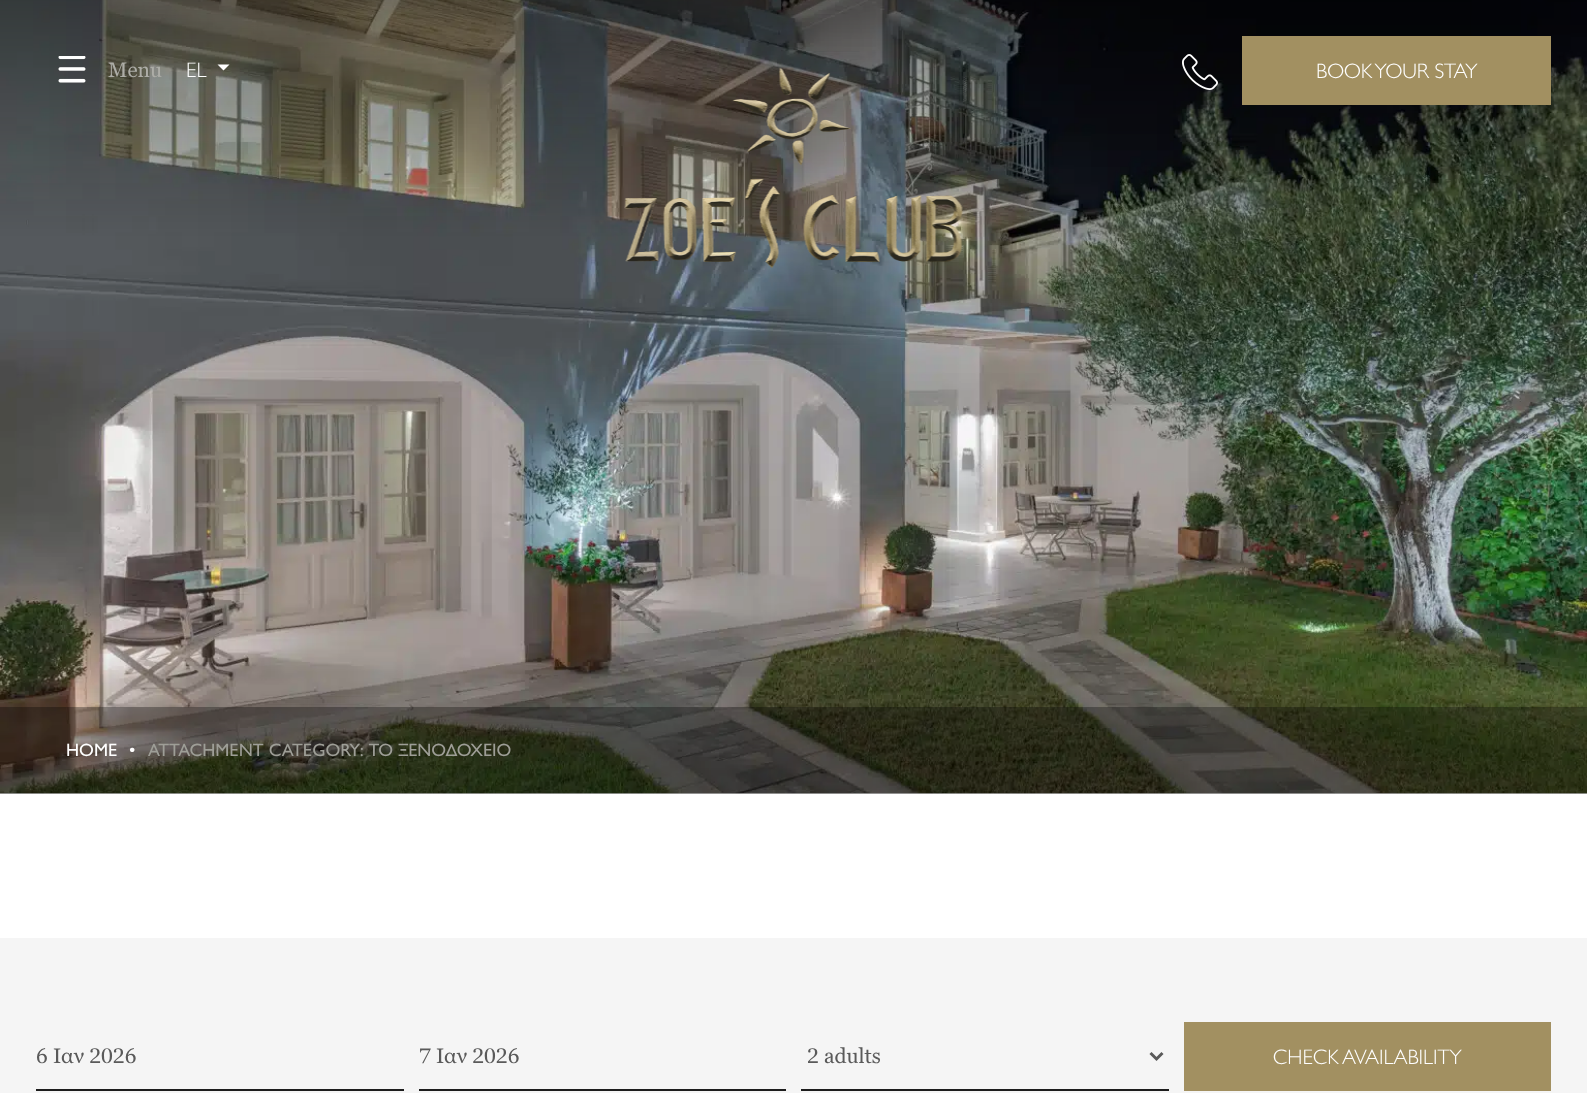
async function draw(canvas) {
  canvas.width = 1587
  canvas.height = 1093
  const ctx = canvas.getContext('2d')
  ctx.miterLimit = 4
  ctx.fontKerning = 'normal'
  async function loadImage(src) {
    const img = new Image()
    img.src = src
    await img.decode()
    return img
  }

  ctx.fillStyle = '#f5f5f5'
  ctx.fillRect(0, 0, 1587, 1093)
  ctx.drawImage(await loadImage('image3.png'), 0, 0, 1587, 794)
  ctx.drawImage(await loadImage('image0.png'), 58, 56, 28, 27)
  ctx.font = '21px "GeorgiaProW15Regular"'
  ctx.fillStyle = '#adada7'
  ctx.fillText('Menu', 108, 77)
  ctx.font = '300 21px "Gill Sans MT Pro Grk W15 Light"'
  ctx.fillStyle = '#fff'
  ctx.fillText('EL', 186, 77)
  ctx.beginPath()
  ctx.moveTo(217.5, 64.5)
  ctx.lineTo(229.5, 64.5)
  ctx.lineTo(223.5, 70.5)
  ctx.closePath()
  ctx.fill()
  ctx.drawImage(await loadImage('image1.png'), 624, 68, 339, 200)
  ctx.drawImage(await loadImage('image2.png'), 1182, 54, 36, 36)
  ctx.fillStyle = '#a29061'
  ctx.fillRect(1242, 36, 309, 69)
  ctx.fillStyle = '#fff'
  ctx.fillText('BOOK YOUR STAY', 1316, 78)
  ctx.fillStyle = '#0000004d'
  ctx.fillRect(0, 707, 1587, 87)
  ctx.font = '500 18px "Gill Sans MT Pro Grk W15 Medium"'
  ctx.fillStyle = '#fff'
  ctx.fillText('HOME', 66, 756)
  ctx.fillText('•', 129, 756)
  ctx.fillStyle = '#9e9e97'
  ctx.fillText('ATTACHMENT CATEGORY: ΤΟ ΞΕΝΟΔΟΧΕΙΟ', 148, 756)
  ctx.fillStyle = '#fff'
  ctx.fillRect(0, 794, 1587, 144)
  ctx.fillStyle = '#1d1d1d'
  ctx.fillRect(36, 1089, 368, 2)
  ctx.font = '21px "GeorgiaProW15Regular"'
  ctx.fillStyle = '#5a5a5a'
  ctx.fillText('6 Ιαν 2026', 36, 1063)
  ctx.fillStyle = '#1d1d1d'
  ctx.fillRect(419, 1089, 367, 2)
  ctx.fillStyle = '#5a5a5a'
  ctx.fillText('7 Ιαν 2026', 419, 1063)
  ctx.fillStyle = '#1d1d1d'
  ctx.fillRect(801, 1089, 368, 2)
  ctx.beginPath()
  ctx.moveTo(1150.5, 1053)
  ctx.lineTo(1156.5, 1059)
  ctx.lineTo(1162.5, 1053)
  ctx.strokeStyle = '#5a5a5a'
  ctx.lineWidth = 3
  ctx.stroke()
  ctx.fillStyle = '#5a5a5a'
  ctx.fillText('2 adults', 807, 1063)
  ctx.fillStyle = '#a29061'
  ctx.fillRect(1184, 1022, 367, 69)
  ctx.font = '300 21px "Gill Sans MT Pro Grk W15 Light"'
  ctx.fillStyle = '#fff'
  ctx.fillText('CHECK AVAILABILITY', 1273, 1064)
}

draw(document.querySelector('canvas'))
